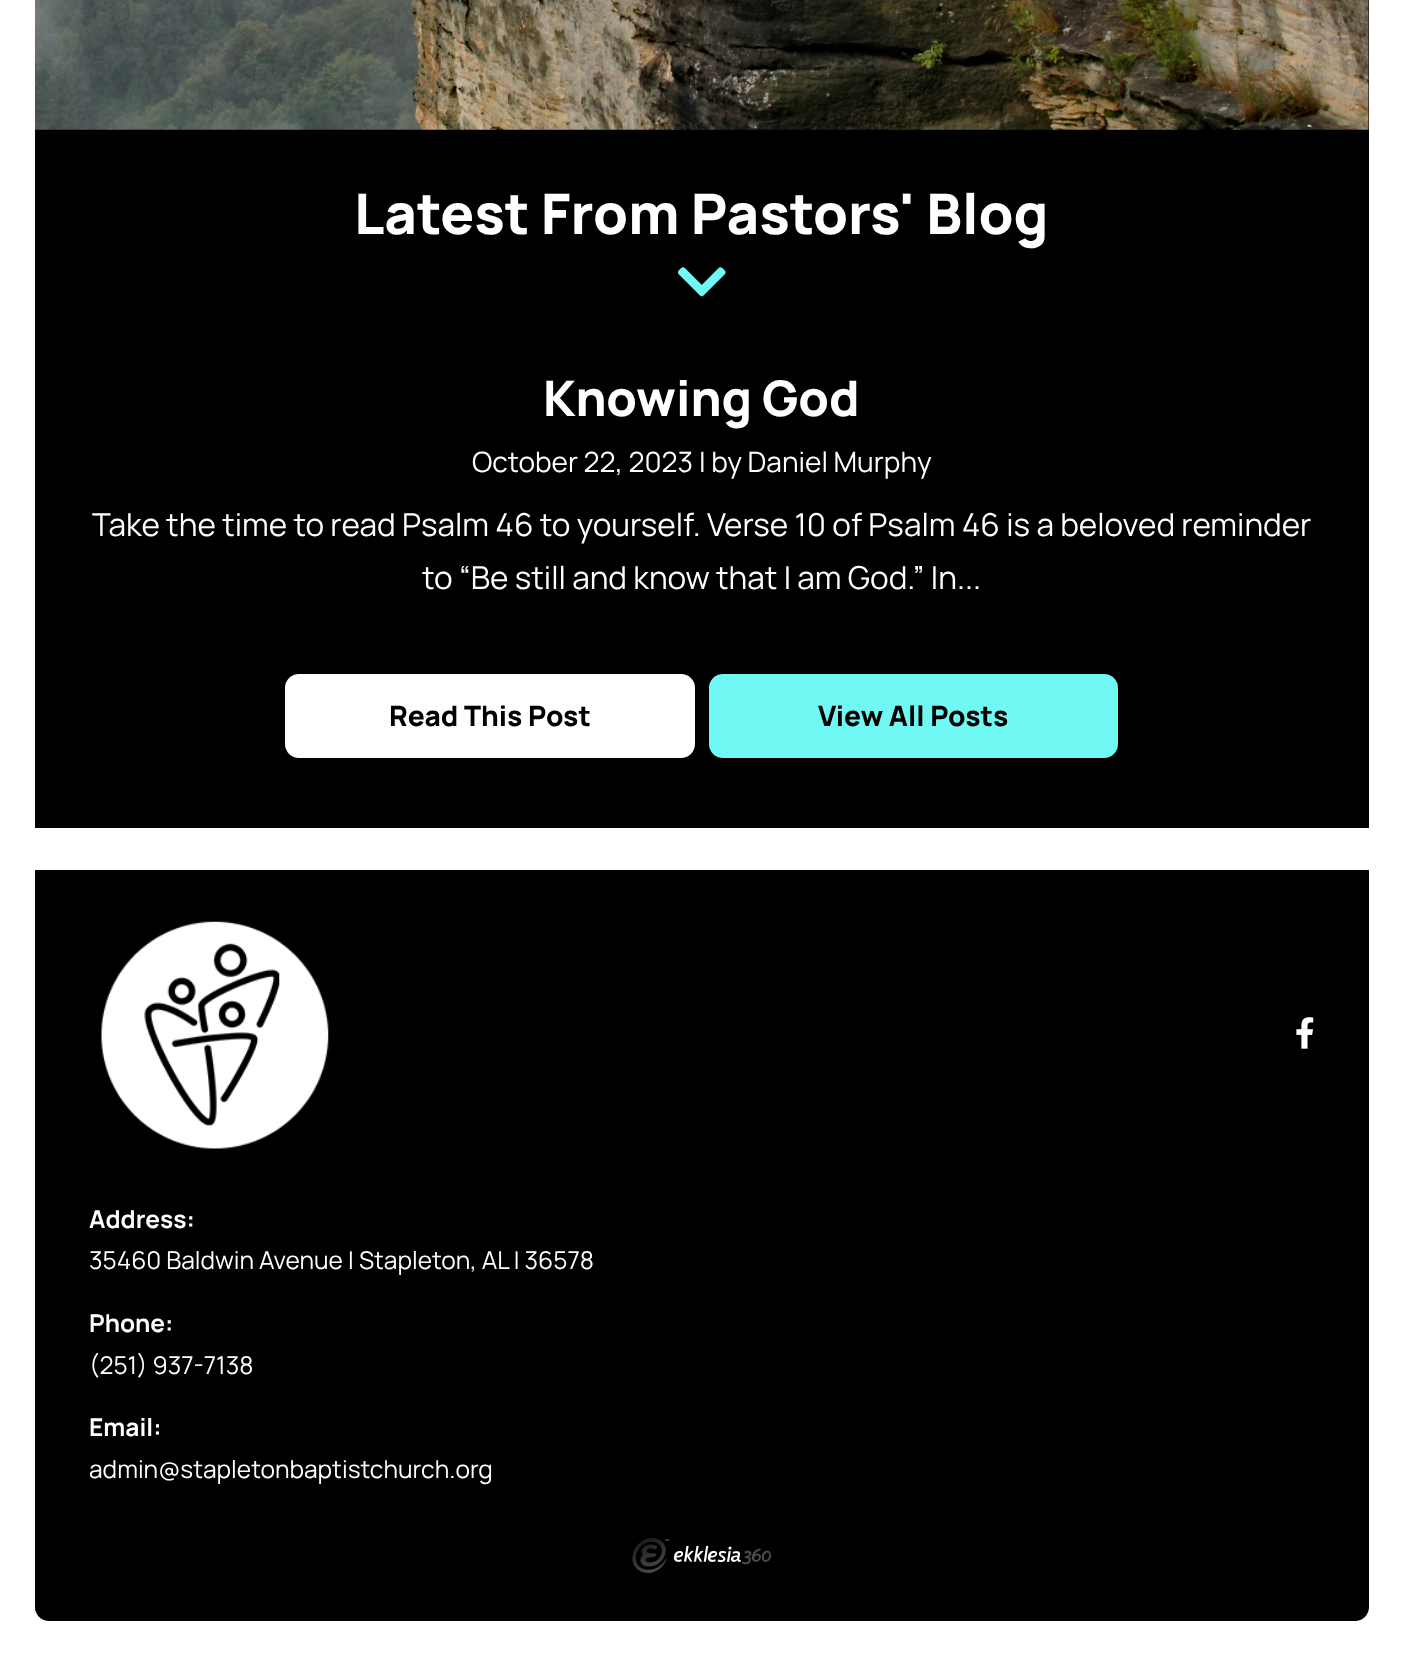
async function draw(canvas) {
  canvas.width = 1403
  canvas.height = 1655
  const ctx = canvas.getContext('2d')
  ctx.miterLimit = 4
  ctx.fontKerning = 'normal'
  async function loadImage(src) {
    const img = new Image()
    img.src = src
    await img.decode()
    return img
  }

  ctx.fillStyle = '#fff'
  ctx.fillRect(0, 0, 1403, 1655)
  ctx.fillStyle = '#000'
  ctx.fillRect(35, 0, 1334, 828)
  ctx.drawImage(await loadImage('image0.png'), 35, 0, 1334, 130)
  ctx.font = '800 56px Manrope'
  ctx.fillStyle = '#fff'
  ctx.fillText('Latest From Pastors\' Blog', 354, 234)
  ctx.drawImage(await loadImage('image1.png'), 677, 267, 49, 30)
  ctx.font = '800 49px Manrope'
  ctx.fillText('Knowing God', 543, 416)
  ctx.font = '28px Manrope'
  ctx.fillText('October 22, 2023 | by Daniel Murphy', 472, 472)
  ctx.font = '31.5px Manrope'
  ctx.fillText('Take the time to read Psalm 46 to yourself. Verse 10 of Psalm 46 is a beloved reminder', 92, 536)
  ctx.fillText('to “Be still and know that I am God.” In...', 422, 589)
  ctx.beginPath()
  ctx.roundRect(285, 674, 410, 84, 14)
  ctx.fill()
  ctx.font = '800 28px Manrope'
  ctx.fillStyle = '#000'
  ctx.fillText('Read This Post', 389, 726)
  ctx.fillStyle = '#70f9f4'
  ctx.beginPath()
  ctx.roundRect(709, 674, 409, 84, 14)
  ctx.fill()
  ctx.fillStyle = '#000'
  ctx.fillText('View All Posts', 818, 726)
  ctx.beginPath()
  ctx.roundRect(35, 870, 1334, 751, [0, 0, 14, 14])
  ctx.fill()
  ctx.drawImage(await loadImage('image2.png'), 101, 921, 228, 228)
  ctx.drawImage(await loadImage('image3.png'), 1296, 1017, 18, 32)
  ctx.font = 'bold 24.5px Manrope'
  ctx.fillStyle = '#fff'
  ctx.fillText('Address:', 89, 1228)
  ctx.font = '24.5px Manrope'
  ctx.fillText('35460 Baldwin Avenue | Stapleton, AL | 36578', 89, 1269)
  ctx.font = 'bold 24.5px Manrope'
  ctx.fillText('Phone:', 89, 1332)
  ctx.font = '24.5px Manrope'
  ctx.fillText('(251) 937-7138', 89, 1374)
  ctx.font = 'bold 24.5px Manrope'
  ctx.fillText('Email:', 89, 1436)
  ctx.font = '24.5px Manrope'
  ctx.fillText('admin@stapletonbaptistchurch.org', 89, 1478)
  ctx.drawImage(await loadImage('image4.png'), 632, 1538, 139, 35)
}

draw(document.querySelector('canvas'))
